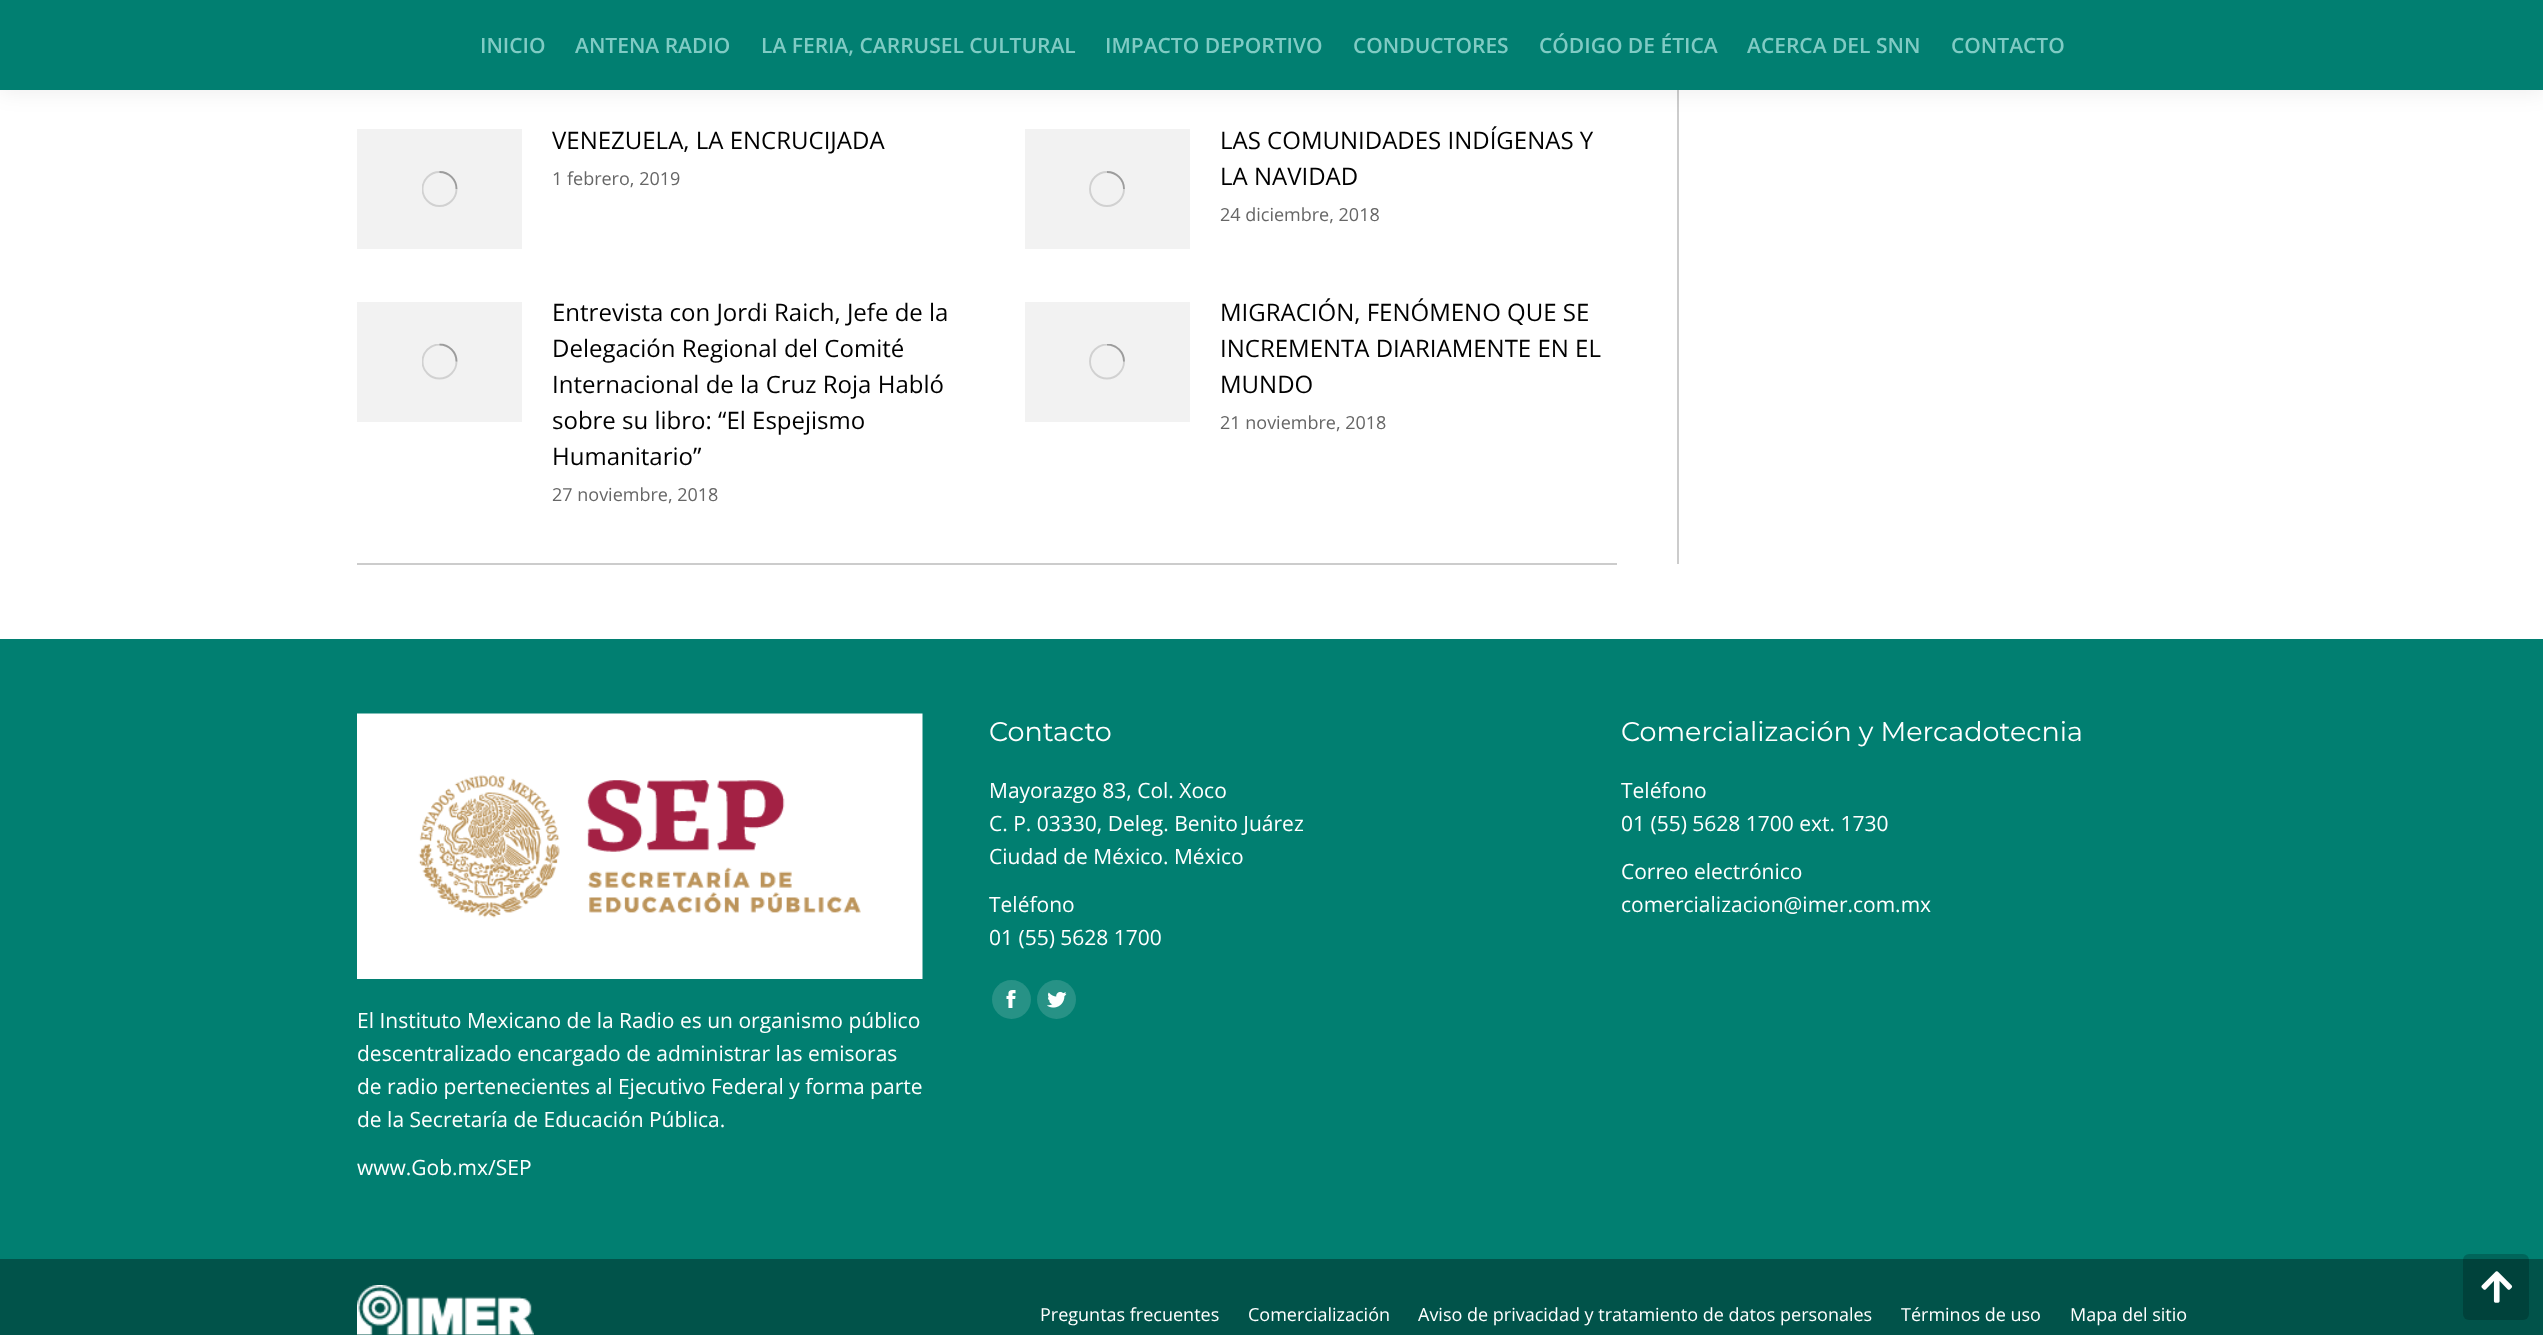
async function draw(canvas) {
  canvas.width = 2543
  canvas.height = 1335
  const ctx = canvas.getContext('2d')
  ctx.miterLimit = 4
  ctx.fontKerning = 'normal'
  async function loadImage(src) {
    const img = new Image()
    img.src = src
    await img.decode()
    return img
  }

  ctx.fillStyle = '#fff'
  ctx.fillRect(0, 0, 2543, 1335)
  ctx.fillStyle = '#ccc'
  ctx.fillRect(1677, 90, 2, 474)
  ctx.fillStyle = '#00000012'
  ctx.filter = 'blur(11px)'
  ctx.beginPath()
  ctx.rect(-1, -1, 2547, 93)
  ctx.fill()
  ctx.filter = 'none'
  ctx.fillStyle = '#017f71'
  ctx.fillRect(0, 0, 2543, 90)
  ctx.font = '600 21px Open Sans'
  ctx.fillStyle = '#80cbc4'
  ctx.fillText('INICIO', 480, 53)
  ctx.fillText('ANTENA RADIO', 575, 53)
  ctx.fillText('LA FERIA, CARRUSEL CULTURAL', 761, 53)
  ctx.fillText('IMPACTO DEPORTIVO', 1105, 53)
  ctx.fillText('CONDUCTORES', 1353, 53)
  ctx.fillText('CÓDIGO DE ÉTICA', 1539, 53)
  ctx.fillText('ACERCA DEL SNN', 1747, 53)
  ctx.fillText('CONTACTO', 1951, 53)
  ctx.fillStyle = '#ccc'
  ctx.fillRect(357, 563, 1260, 2)
  ctx.fillStyle = '#f2f2f2'
  ctx.fillRect(357, 129, 165, 120)
  ctx.save()
  ctx.beginPath()
  ctx.rect(422, 171, 36, 36)
  ctx.clip()
  ctx.beginPath()
  ctx.arc(439.5, 189, 17, 0, 2 * Math.PI)
  ctx.strokeStyle = '#d1d1d1'
  ctx.lineWidth = 1.9
  ctx.stroke()
  ctx.restore()
  ctx.beginPath()
  ctx.moveTo(456.5, 189)
  ctx.bezierCurveTo(456.5, 179.5, 449, 172, 439.5, 172)
  ctx.strokeStyle = '#00000040'
  ctx.lineWidth = 1.9
  ctx.stroke()
  ctx.font = '24px Open Sans'
  ctx.fillStyle = '#000'
  ctx.fillText('VENEZUELA, LA ENCRUCIJADA', 552, 149)
  ctx.font = '18px Open Sans'
  ctx.fillStyle = '#666'
  ctx.fillText('1 febrero, 2019', 552, 185)
  ctx.fillStyle = '#f2f2f2'
  ctx.fillRect(1025, 129, 165, 120)
  ctx.beginPath()
  ctx.arc(1107, 189, 17, 0, 2 * Math.PI)
  ctx.strokeStyle = '#d1d1d1'
  ctx.stroke()
  ctx.beginPath()
  ctx.moveTo(1124, 189)
  ctx.bezierCurveTo(1124, 179.5, 1116.5, 172, 1107, 172)
  ctx.strokeStyle = '#00000040'
  ctx.stroke()
  ctx.font = '24px Open Sans'
  ctx.fillStyle = '#000'
  ctx.fillText('LAS COMUNIDADES INDÍGENAS Y', 1220, 149)
  ctx.fillText('LA NAVIDAD', 1220, 185)
  ctx.font = '18px Open Sans'
  ctx.fillStyle = '#666'
  ctx.fillText('24 diciembre, 2018', 1220, 221)
  ctx.fillStyle = '#f2f2f2'
  ctx.fillRect(357, 302, 165, 120)
  ctx.save()
  ctx.beginPath()
  ctx.rect(422, 344, 36, 36)
  ctx.clip()
  ctx.beginPath()
  ctx.arc(439.5, 361.5, 17, 0, 2 * Math.PI)
  ctx.strokeStyle = '#d1d1d1'
  ctx.stroke()
  ctx.restore()
  ctx.beginPath()
  ctx.moveTo(456.5, 361.5)
  ctx.bezierCurveTo(456.5, 352, 449, 344.5, 439.5, 344.5)
  ctx.stroke()
  ctx.font = '24px Open Sans'
  ctx.fillStyle = '#000'
  ctx.fillText('Entrevista con Jordi Raich, Jefe de la', 552, 321)
  ctx.fillText('Delegación Regional del Comité', 552, 357)
  ctx.fillText('Internacional de la Cruz Roja Habló', 552, 393)
  ctx.fillText('sobre su libro: “El Espejismo', 552, 429)
  ctx.fillText('Humanitario”', 552, 465)
  ctx.font = '18px Open Sans'
  ctx.fillStyle = '#666'
  ctx.fillText('27 noviembre, 2018', 552, 501)
  ctx.fillStyle = '#f2f2f2'
  ctx.fillRect(1025, 302, 165, 120)
  ctx.save()
  ctx.beginPath()
  ctx.rect(1089, 344, 36, 36)
  ctx.clip()
  ctx.beginPath()
  ctx.arc(1107, 361.5, 17, 0, 2 * Math.PI)
  ctx.strokeStyle = '#d1d1d1'
  ctx.stroke()
  ctx.beginPath()
  ctx.moveTo(1124, 361.5)
  ctx.bezierCurveTo(1124, 352, 1116.5, 344.5, 1107, 344.5)
  ctx.strokeStyle = '#00000040'
  ctx.stroke()
  ctx.restore()
  ctx.font = '24px Open Sans'
  ctx.fillStyle = '#000'
  ctx.fillText('MIGRACIÓN, FENÓMENO QUE SE', 1220, 321)
  ctx.fillText('INCREMENTA DIARIAMENTE EN EL', 1220, 357)
  ctx.fillText('MUNDO', 1220, 393)
  ctx.font = '18px Open Sans'
  ctx.fillStyle = '#666'
  ctx.fillText('21 noviembre, 2018', 1220, 429)
  ctx.fillStyle = '#017f71'
  ctx.fillRect(0, 639, 2543, 620)
  ctx.font = '27px Montserrat'
  ctx.fillStyle = '#fff'
  ctx.fillText('Contacto', 989, 741)
  ctx.font = '21px Open Sans'
  ctx.fillText('Mayorazgo 83, Col. Xoco', 989, 798)
  ctx.fillText('C. P. 03330, Deleg. Benito Juárez', 989, 831)
  ctx.fillText('Ciudad de México. México', 989, 864)
  ctx.fillText('Teléfono', 989, 912)
  ctx.fillText('01 (55) 5628 1700', 989, 945)
  ctx.fillStyle = '#279286'
  ctx.beginPath()
  ctx.arc(1011.5, 999.5, 19.5, 0, 2 * Math.PI)
  ctx.fill()
  ctx.drawImage(await loadImage('image0.png'), 1006, 990, 10, 18)
  ctx.beginPath()
  ctx.arc(1056.5, 999.5, 19.5, 0, 2 * Math.PI)
  ctx.fill()
  ctx.drawImage(await loadImage('image1.png'), 1047, 991, 20, 17)
  ctx.font = '27px Montserrat'
  ctx.fillStyle = '#fff'
  ctx.fillText('Comercialización y Mercadotecnia', 1621, 741)
  ctx.font = '21px Open Sans'
  ctx.fillText('Teléfono', 1621, 798)
  ctx.fillText('01 (55) 5628 1700 ext. 1730', 1621, 831)
  ctx.fillText('Correo electrónico', 1621, 879)
  ctx.fillText('comercializacion@imer.com.mx', 1621, 912)
  ctx.drawImage(await loadImage('image2.png'), 357, 713, 566, 266)
  ctx.fillText('El Instituto Mexicano de la Radio es un organismo público', 357, 1028)
  ctx.fillText('descentralizado encargado de administrar las emisoras', 357, 1061)
  ctx.fillText('de radio pertenecientes al Ejecutivo Federal y forma parte', 357, 1094)
  ctx.fillText('de la Secretaría de Educación Pública.', 357, 1127)
  ctx.fillText('www.Gob.mx/SEP', 357, 1175)
  ctx.fillStyle = '#01534a'
  ctx.fillRect(0, 1259, 2543, 76)
  ctx.drawImage(await loadImage('image3.png'), 357, 1285, 177, 50)
  ctx.font = '18px Open Sans'
  ctx.fillStyle = '#fff'
  ctx.fillText('Preguntas frecuentes', 1040, 1321)
  ctx.fillText('Comercialización', 1248, 1321)
  ctx.fillText('Aviso de privacidad y tratamiento de datos personales', 1418, 1321)
  ctx.fillText('Términos de uso', 1901, 1321)
  ctx.fillText('Mapa del sitio', 2070, 1321)
  ctx.fillStyle = '#00000033'
  ctx.beginPath()
  ctx.roundRect(2463, 1254, 66, 66, 6)
  ctx.fill()
  ctx.drawImage(await loadImage('image4.png'), 2481, 1271, 32, 32)
}

draw(document.querySelector('canvas'))
